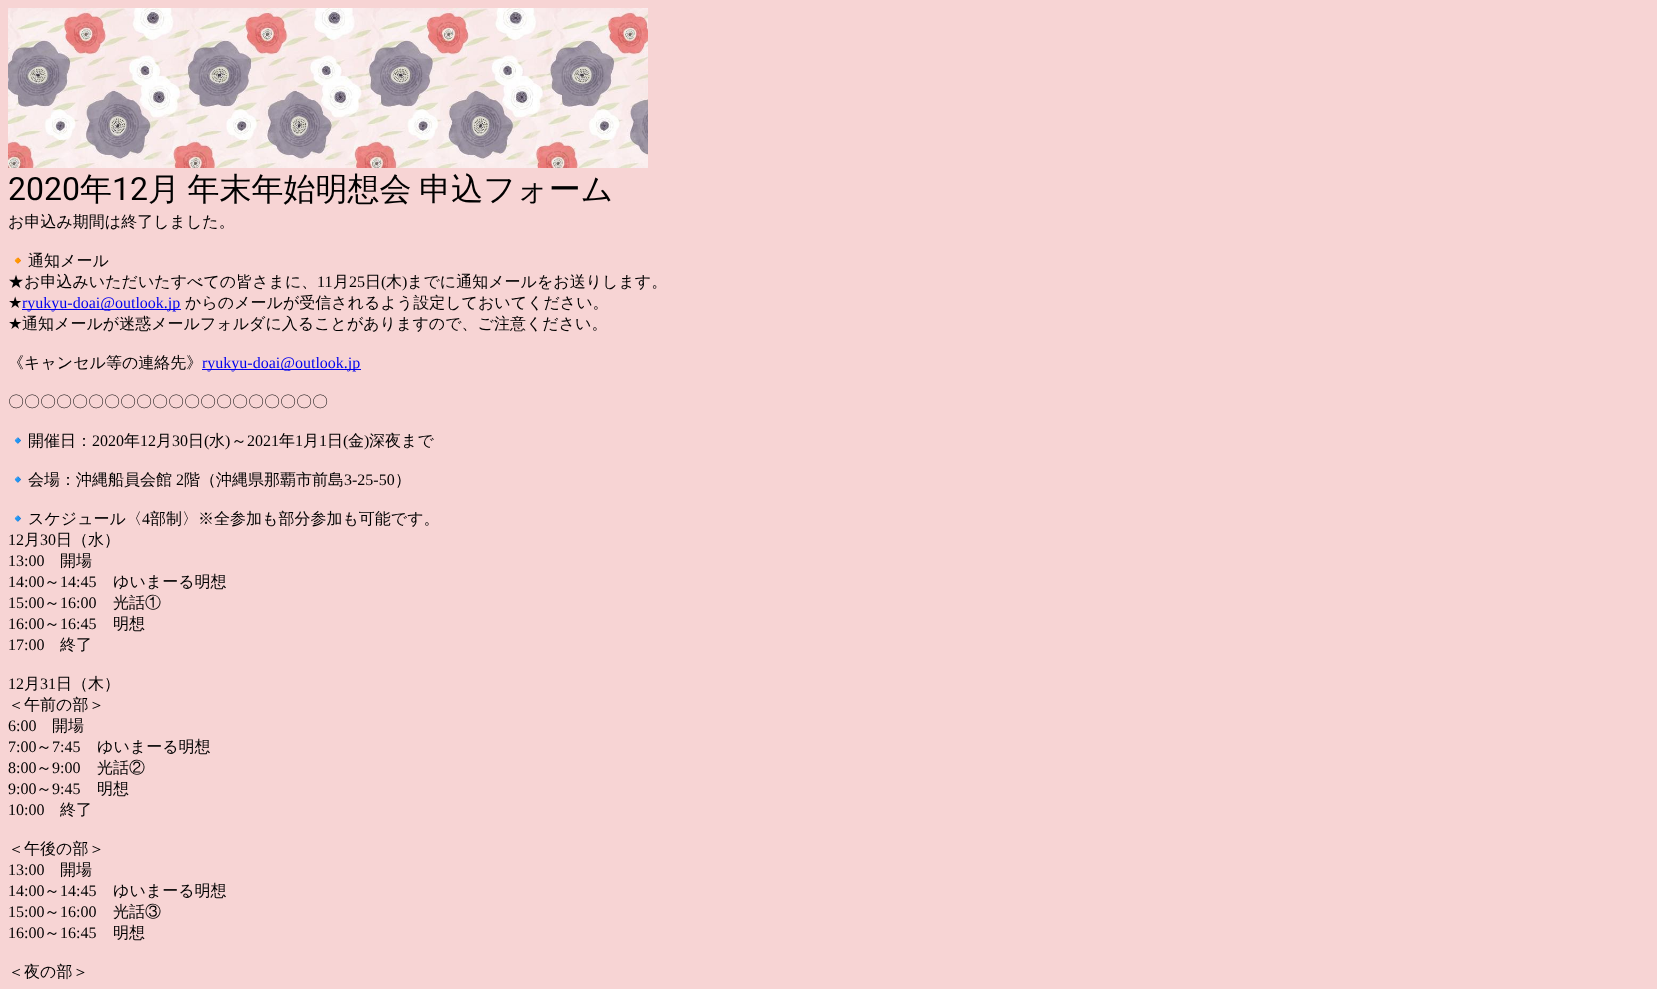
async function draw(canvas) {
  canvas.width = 1657
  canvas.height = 989
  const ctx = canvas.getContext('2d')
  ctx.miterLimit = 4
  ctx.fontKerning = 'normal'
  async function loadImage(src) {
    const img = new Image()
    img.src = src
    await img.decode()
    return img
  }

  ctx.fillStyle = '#f7d4d4'
  ctx.fillRect(0, 0, 1657, 989)
  ctx.drawImage(await loadImage('image0.png'), 8, 8, 640, 160)
  ctx.font = '32px Roboto'
  ctx.fillStyle = '#000'
  ctx.fillText('2020', 8, 200)
  ctx.font = '500 32px WenQuanYi Zen Hei'
  ctx.fillText('年', 80, 200)
  ctx.font = '32px Roboto'
  ctx.fillText('12', 112, 200)
  ctx.wordSpacing = '-2px'
  ctx.font = '500 32px WenQuanYi Zen Hei'
  ctx.fillText('月 年末年始明想会 申込フォーム', 148, 200)
  ctx.wordSpacing = '0px'
  ctx.font = '500 16px WenQuanYi Zen Hei'
  ctx.fillText('お申込み期間は終了しました。', 8, 227)
  ctx.font = '16px Noto Color Emoji'
  ctx.fillText('🔸', 8, 266)
  ctx.font = '500 16px WenQuanYi Zen Hei'
  ctx.fillText('通知メール', 28, 266)
  ctx.fillText('★お申込みいただいたすべての皆さまに、', 8, 287)
  ctx.font = '16px Liberation Serif'
  ctx.fillText('11', 317, 287)
  ctx.font = '500 16px WenQuanYi Zen Hei'
  ctx.fillText('月', 333, 287)
  ctx.font = '16px Liberation Serif'
  ctx.fillText('25', 349, 287)
  ctx.font = '500 16px WenQuanYi Zen Hei'
  ctx.fillText('日', 365, 287)
  ctx.font = '16px Liberation Serif'
  ctx.fillText('(', 381, 287)
  ctx.font = '500 16px WenQuanYi Zen Hei'
  ctx.fillText('木', 386, 287)
  ctx.font = '16px Liberation Serif'
  ctx.fillText(')', 402, 287)
  ctx.font = '500 16px WenQuanYi Zen Hei'
  ctx.fillText('までに通知メールをお送りします。', 407, 287)
  ctx.font = '16px DejaVu Sans'
  ctx.fillText('★', 8, 308)
  ctx.fillStyle = '#00e'
  ctx.fillRect(22, 309, 159, 1)
  ctx.font = '16px Liberation Serif'
  ctx.fillText('ryukyu-doai@outlook.jp', 22, 308)
  ctx.font = '500 16px WenQuanYi Zen Hei'
  ctx.fillStyle = '#000'
  ctx.fillText('からのメールが受信されるよう設定しておいてください。', 185, 308)
  ctx.font = '16px DejaVu Sans'
  ctx.fillText('★', 8, 329)
  ctx.font = '500 16px WenQuanYi Zen Hei'
  ctx.fillText('通知メールが迷惑メールフォルダに入ることがありますので、ご注意ください。', 22, 329)
  ctx.fillText('《キャンセル等の連絡先》', 8, 368)
  ctx.fillStyle = '#00e'
  ctx.fillRect(202, 369, 159, 1)
  ctx.font = '16px Liberation Serif'
  ctx.fillText('ryukyu-doai@outlook.jp', 202, 368)
  ctx.font = '500 16px WenQuanYi Zen Hei'
  ctx.fillStyle = '#000'
  ctx.fillText('〇〇〇〇〇〇〇〇〇〇〇〇〇〇〇〇〇〇〇〇', 8, 407)
  ctx.font = '16px Noto Color Emoji'
  ctx.fillText('🔹', 8, 446)
  ctx.font = '500 16px WenQuanYi Zen Hei'
  ctx.fillText('開催日：', 28, 446)
  ctx.font = '16px Liberation Serif'
  ctx.fillText('2020', 92, 446)
  ctx.font = '500 16px WenQuanYi Zen Hei'
  ctx.fillText('年', 124, 446)
  ctx.font = '16px Liberation Serif'
  ctx.fillText('12', 140, 446)
  ctx.font = '500 16px WenQuanYi Zen Hei'
  ctx.fillText('月', 156, 446)
  ctx.font = '16px Liberation Serif'
  ctx.fillText('30', 172, 446)
  ctx.font = '500 16px WenQuanYi Zen Hei'
  ctx.fillText('日', 188, 446)
  ctx.font = '16px Liberation Serif'
  ctx.fillText('(', 204, 446)
  ctx.font = '500 16px WenQuanYi Zen Hei'
  ctx.fillText('水', 209, 446)
  ctx.font = '16px Liberation Serif'
  ctx.fillText(')', 225, 446)
  ctx.font = '500 16px WenQuanYi Zen Hei'
  ctx.fillText('～', 231, 446)
  ctx.font = '16px Liberation Serif'
  ctx.fillText('2021', 247, 446)
  ctx.font = '500 16px WenQuanYi Zen Hei'
  ctx.fillText('年', 279, 446)
  ctx.font = '16px Liberation Serif'
  ctx.fillText('1', 295, 446)
  ctx.font = '500 16px WenQuanYi Zen Hei'
  ctx.fillText('月', 303, 446)
  ctx.font = '16px Liberation Serif'
  ctx.fillText('1', 319, 446)
  ctx.font = '500 16px WenQuanYi Zen Hei'
  ctx.fillText('日', 327, 446)
  ctx.font = '16px Liberation Serif'
  ctx.fillText('(', 343, 446)
  ctx.font = '500 16px WenQuanYi Zen Hei'
  ctx.fillText('金', 348, 446)
  ctx.font = '16px Liberation Serif'
  ctx.fillText(')', 364, 446)
  ctx.font = '500 16px WenQuanYi Zen Hei'
  ctx.fillText('深夜まで', 369, 446)
  ctx.font = '16px Noto Color Emoji'
  ctx.fillText('🔹', 8, 485)
  ctx.font = '500 16px WenQuanYi Zen Hei'
  ctx.fillText('会場：沖縄船員会館', 28, 485)
  ctx.font = '16px Liberation Serif'
  ctx.fillText('2', 176, 485)
  ctx.font = '500 16px WenQuanYi Zen Hei'
  ctx.fillText('階（沖縄県那覇市前島', 184, 485)
  ctx.font = '16px Liberation Serif'
  ctx.fillText('3-25-50', 344, 485)
  ctx.font = '500 16px WenQuanYi Zen Hei'
  ctx.fillText('）', 395, 485)
  ctx.font = '16px Noto Color Emoji'
  ctx.fillText('🔹', 8, 524)
  ctx.font = '500 16px WenQuanYi Zen Hei'
  ctx.fillText('スケジュール〈', 28, 524)
  ctx.font = '16px Liberation Serif'
  ctx.fillText('4', 142, 524)
  ctx.font = '500 16px WenQuanYi Zen Hei'
  ctx.fillText('部制〉※全参加も部分参加も可能です。', 150, 524)
  ctx.font = '16px Liberation Serif'
  ctx.fillText('12', 8, 545)
  ctx.font = '500 16px WenQuanYi Zen Hei'
  ctx.fillText('月', 24, 545)
  ctx.font = '16px Liberation Serif'
  ctx.fillText('30', 40, 545)
  ctx.font = '500 16px WenQuanYi Zen Hei'
  ctx.fillText('日（水）', 56, 545)
  ctx.font = '16px Liberation Serif'
  ctx.fillText('13:00', 8, 566)
  ctx.font = '500 16px WenQuanYi Zen Hei'
  ctx.fillText('開場', 60, 566)
  ctx.font = '16px Liberation Serif'
  ctx.fillText('14:00', 8, 587)
  ctx.font = '500 16px WenQuanYi Zen Hei'
  ctx.fillText('～', 44, 587)
  ctx.font = '16px Liberation Serif'
  ctx.fillText('14:45', 60, 587)
  ctx.font = '500 16px WenQuanYi Zen Hei'
  ctx.fillText('ゆいまーる明想', 113, 587)
  ctx.font = '16px Liberation Serif'
  ctx.fillText('15:00', 8, 608)
  ctx.font = '500 16px WenQuanYi Zen Hei'
  ctx.fillText('～', 44, 608)
  ctx.font = '16px Liberation Serif'
  ctx.fillText('16:00', 60, 608)
  ctx.font = '500 16px WenQuanYi Zen Hei'
  ctx.fillText('光話①', 113, 608)
  ctx.font = '16px Liberation Serif'
  ctx.fillText('16:00', 8, 629)
  ctx.font = '500 16px WenQuanYi Zen Hei'
  ctx.fillText('～', 44, 629)
  ctx.font = '16px Liberation Serif'
  ctx.fillText('16:45', 60, 629)
  ctx.font = '500 16px WenQuanYi Zen Hei'
  ctx.fillText('明想', 113, 629)
  ctx.font = '16px Liberation Serif'
  ctx.fillText('17:00', 8, 650)
  ctx.font = '500 16px WenQuanYi Zen Hei'
  ctx.fillText('終了', 60, 650)
  ctx.font = '16px Liberation Serif'
  ctx.fillText('12', 8, 689)
  ctx.font = '500 16px WenQuanYi Zen Hei'
  ctx.fillText('月', 24, 689)
  ctx.font = '16px Liberation Serif'
  ctx.fillText('31', 40, 689)
  ctx.font = '500 16px WenQuanYi Zen Hei'
  ctx.fillText('日（木）', 56, 689)
  ctx.fillText('＜午前の部＞', 8, 710)
  ctx.font = '16px Liberation Serif'
  ctx.fillText('6:00', 8, 731)
  ctx.font = '500 16px WenQuanYi Zen Hei'
  ctx.fillText('開場', 52, 731)
  ctx.font = '16px Liberation Serif'
  ctx.fillText('7:00', 8, 752)
  ctx.font = '500 16px WenQuanYi Zen Hei'
  ctx.fillText('～', 36, 752)
  ctx.font = '16px Liberation Serif'
  ctx.fillText('7:45', 52, 752)
  ctx.font = '500 16px WenQuanYi Zen Hei'
  ctx.fillText('ゆいまーる明想', 97, 752)
  ctx.font = '16px Liberation Serif'
  ctx.fillText('8:00', 8, 773)
  ctx.font = '500 16px WenQuanYi Zen Hei'
  ctx.fillText('～', 36, 773)
  ctx.font = '16px Liberation Serif'
  ctx.fillText('9:00', 52, 773)
  ctx.font = '500 16px WenQuanYi Zen Hei'
  ctx.fillText('光話②', 97, 773)
  ctx.font = '16px Liberation Serif'
  ctx.fillText('9:00', 8, 794)
  ctx.font = '500 16px WenQuanYi Zen Hei'
  ctx.fillText('～', 36, 794)
  ctx.font = '16px Liberation Serif'
  ctx.fillText('9:45', 52, 794)
  ctx.font = '500 16px WenQuanYi Zen Hei'
  ctx.fillText('明想', 97, 794)
  ctx.font = '16px Liberation Serif'
  ctx.fillText('10:00', 8, 815)
  ctx.font = '500 16px WenQuanYi Zen Hei'
  ctx.fillText('終了', 60, 815)
  ctx.fillText('＜午後の部＞', 8, 854)
  ctx.font = '16px Liberation Serif'
  ctx.fillText('13:00', 8, 875)
  ctx.font = '500 16px WenQuanYi Zen Hei'
  ctx.fillText('開場', 60, 875)
  ctx.font = '16px Liberation Serif'
  ctx.fillText('14:00', 8, 896)
  ctx.font = '500 16px WenQuanYi Zen Hei'
  ctx.fillText('～', 44, 896)
  ctx.font = '16px Liberation Serif'
  ctx.fillText('14:45', 60, 896)
  ctx.font = '500 16px WenQuanYi Zen Hei'
  ctx.fillText('ゆいまーる明想', 113, 896)
  ctx.font = '16px Liberation Serif'
  ctx.fillText('15:00', 8, 917)
  ctx.font = '500 16px WenQuanYi Zen Hei'
  ctx.fillText('～', 44, 917)
  ctx.font = '16px Liberation Serif'
  ctx.fillText('16:00', 60, 917)
  ctx.font = '500 16px WenQuanYi Zen Hei'
  ctx.fillText('光話③', 113, 917)
  ctx.font = '16px Liberation Serif'
  ctx.fillText('16:00', 8, 938)
  ctx.font = '500 16px WenQuanYi Zen Hei'
  ctx.fillText('～', 44, 938)
  ctx.font = '16px Liberation Serif'
  ctx.fillText('16:45', 60, 938)
  ctx.font = '500 16px WenQuanYi Zen Hei'
  ctx.fillText('明想', 113, 938)
  ctx.fillText('＜夜の部＞', 8, 977)
}

draw(document.querySelector('canvas'))
